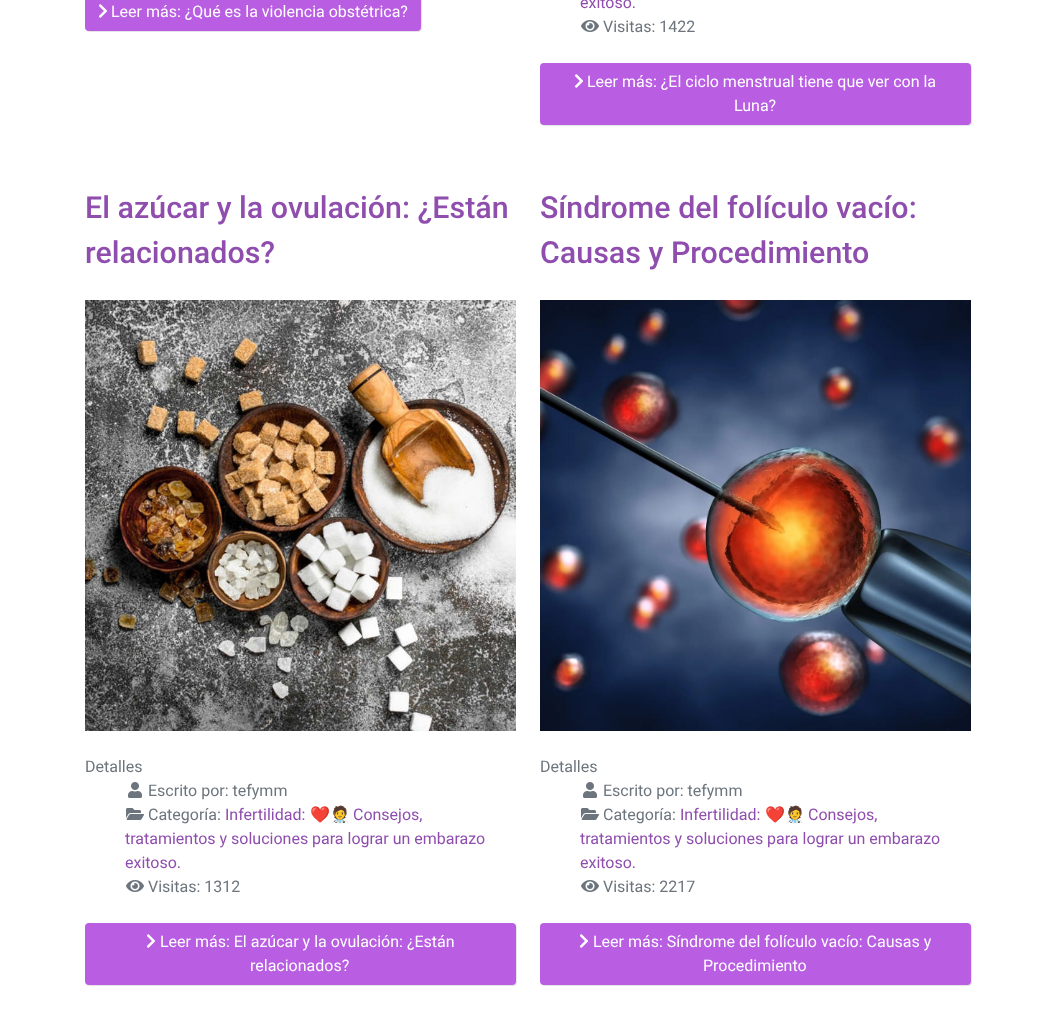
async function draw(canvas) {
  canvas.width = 1055
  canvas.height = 1013
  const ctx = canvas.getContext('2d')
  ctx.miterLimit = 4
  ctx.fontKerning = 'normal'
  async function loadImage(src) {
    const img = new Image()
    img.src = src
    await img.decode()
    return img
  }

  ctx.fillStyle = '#fff'
  ctx.fillRect(0, 0, 1055, 1013)
  ctx.fillStyle = '#0000001a'
  ctx.filter = 'blur(0.5px)'
  ctx.beginPath()
  ctx.roundRect(86, -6, 336, 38, 4)
  ctx.fill()
  ctx.filter = 'none'
  ctx.fillStyle = '#b95de3'
  ctx.beginPath()
  ctx.roundRect(85, -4, 336, 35, 4)
  ctx.fill()
  ctx.drawImage(await loadImage('image0.png'), 98, 4, 10, 14)
  ctx.font = '16px Roboto'
  ctx.fillStyle = '#fff'
  ctx.fillText('Leer más: ¿Qué es la violencia obstétrica?', 111, 17)
  ctx.fillStyle = '#8f4dae'
  ctx.fillText('exitoso.', 580, 8)
  ctx.drawImage(await loadImage('image1.png'), 581, 20, 18, 12)
  ctx.fillStyle = '#6c757d'
  ctx.fillText('Visitas: 1422', 603, 32)
  ctx.fillStyle = '#0000001a'
  ctx.filter = 'blur(0.5px)'
  ctx.beginPath()
  ctx.roundRect(541, 64, 431, 62, 4)
  ctx.fill()
  ctx.filter = 'none'
  ctx.fillStyle = '#b95de3'
  ctx.beginPath()
  ctx.roundRect(540, 63, 431, 62, 4)
  ctx.fill()
  ctx.drawImage(await loadImage('image0.png'), 574, 74, 10, 14)
  ctx.fillStyle = '#fff'
  ctx.fillText('Leer más: ¿El ciclo menstrual tiene que ver con la', 587, 87)
  ctx.fillText('Luna?', 734, 111)
  ctx.font = '500 30.4px Roboto'
  ctx.fillStyle = '#8f4dae'
  ctx.fillText('El azúcar y la ovulación: ¿Están', 85, 218)
  ctx.fillText('relacionados?', 85, 263)
  ctx.drawImage(await loadImage('image2.png'), 85, 300, 431, 431)
  ctx.font = '16px Roboto'
  ctx.fillStyle = '#6c757d'
  ctx.fillText('Detalles', 85, 772)
  ctx.drawImage(await loadImage('image3.png'), 128, 782, 14, 16)
  ctx.fillText('Escrito por: tefymm', 148, 796)
  ctx.drawImage(await loadImage('image4.png'), 126, 808, 18, 12)
  ctx.fillText('Categoría:', 148, 820)
  ctx.fillStyle = '#8f4dae'
  ctx.fillText('Infertilidad:', 225, 820)
  ctx.font = '16px Noto Color Emoji'
  ctx.fillText('❤️🧑‍⚕️', 310, 820)
  ctx.font = '16px Roboto'
  ctx.fillText('Consejos,', 353, 820)
  ctx.fillText('tratamientos y soluciones para lograr un embarazo', 125, 844)
  ctx.fillText('exitoso.', 125, 868)
  ctx.drawImage(await loadImage('image1.png'), 126, 880, 18, 12)
  ctx.fillStyle = '#6c757d'
  ctx.fillText('Visitas: 1312', 148, 892)
  ctx.fillStyle = '#0000001a'
  ctx.filter = 'blur(0.5px)'
  ctx.beginPath()
  ctx.roundRect(86, 924, 431, 62, 4)
  ctx.fill()
  ctx.filter = 'none'
  ctx.fillStyle = '#b95de3'
  ctx.beginPath()
  ctx.roundRect(85, 923, 431, 62, 4)
  ctx.fill()
  ctx.drawImage(await loadImage('image0.png'), 146, 934, 10, 14)
  ctx.fillStyle = '#fff'
  ctx.fillText('Leer más: El azúcar y la ovulación: ¿Están', 160, 947)
  ctx.fillText('relacionados?', 250, 971)
  ctx.font = '500 30.4px Roboto'
  ctx.fillStyle = '#8f4dae'
  ctx.fillText('Síndrome del folículo vacío:', 540, 218)
  ctx.fillText('Causas y Procedimiento', 540, 263)
  ctx.drawImage(await loadImage('image5.png'), 540, 300, 431, 431)
  ctx.font = '16px Roboto'
  ctx.fillStyle = '#6c757d'
  ctx.fillText('Detalles', 540, 772)
  ctx.drawImage(await loadImage('image3.png'), 583, 782, 14, 16)
  ctx.fillText('Escrito por: tefymm', 603, 796)
  ctx.drawImage(await loadImage('image4.png'), 581, 808, 18, 12)
  ctx.fillText('Categoría:', 603, 820)
  ctx.fillStyle = '#8f4dae'
  ctx.fillText('Infertilidad:', 680, 820)
  ctx.font = '16px Noto Color Emoji'
  ctx.fillText('❤️🧑‍⚕️', 765, 820)
  ctx.font = '16px Roboto'
  ctx.fillText('Consejos,', 808, 820)
  ctx.fillText('tratamientos y soluciones para lograr un embarazo', 580, 844)
  ctx.fillText('exitoso.', 580, 868)
  ctx.drawImage(await loadImage('image1.png'), 581, 880, 18, 12)
  ctx.fillStyle = '#6c757d'
  ctx.fillText('Visitas: 2217', 603, 892)
  ctx.fillStyle = '#0000001a'
  ctx.filter = 'blur(0.5px)'
  ctx.beginPath()
  ctx.roundRect(541, 924, 431, 62, 4)
  ctx.fill()
  ctx.filter = 'none'
  ctx.fillStyle = '#b95de3'
  ctx.beginPath()
  ctx.roundRect(540, 923, 431, 62, 4)
  ctx.fill()
  ctx.drawImage(await loadImage('image0.png'), 579, 934, 10, 14)
  ctx.fillStyle = '#fff'
  ctx.fillText('Leer más: Síndrome del folículo vacío: Causas y', 593, 947)
  ctx.fillText('Procedimiento', 703, 971)
}

draw(document.querySelector('canvas'))
